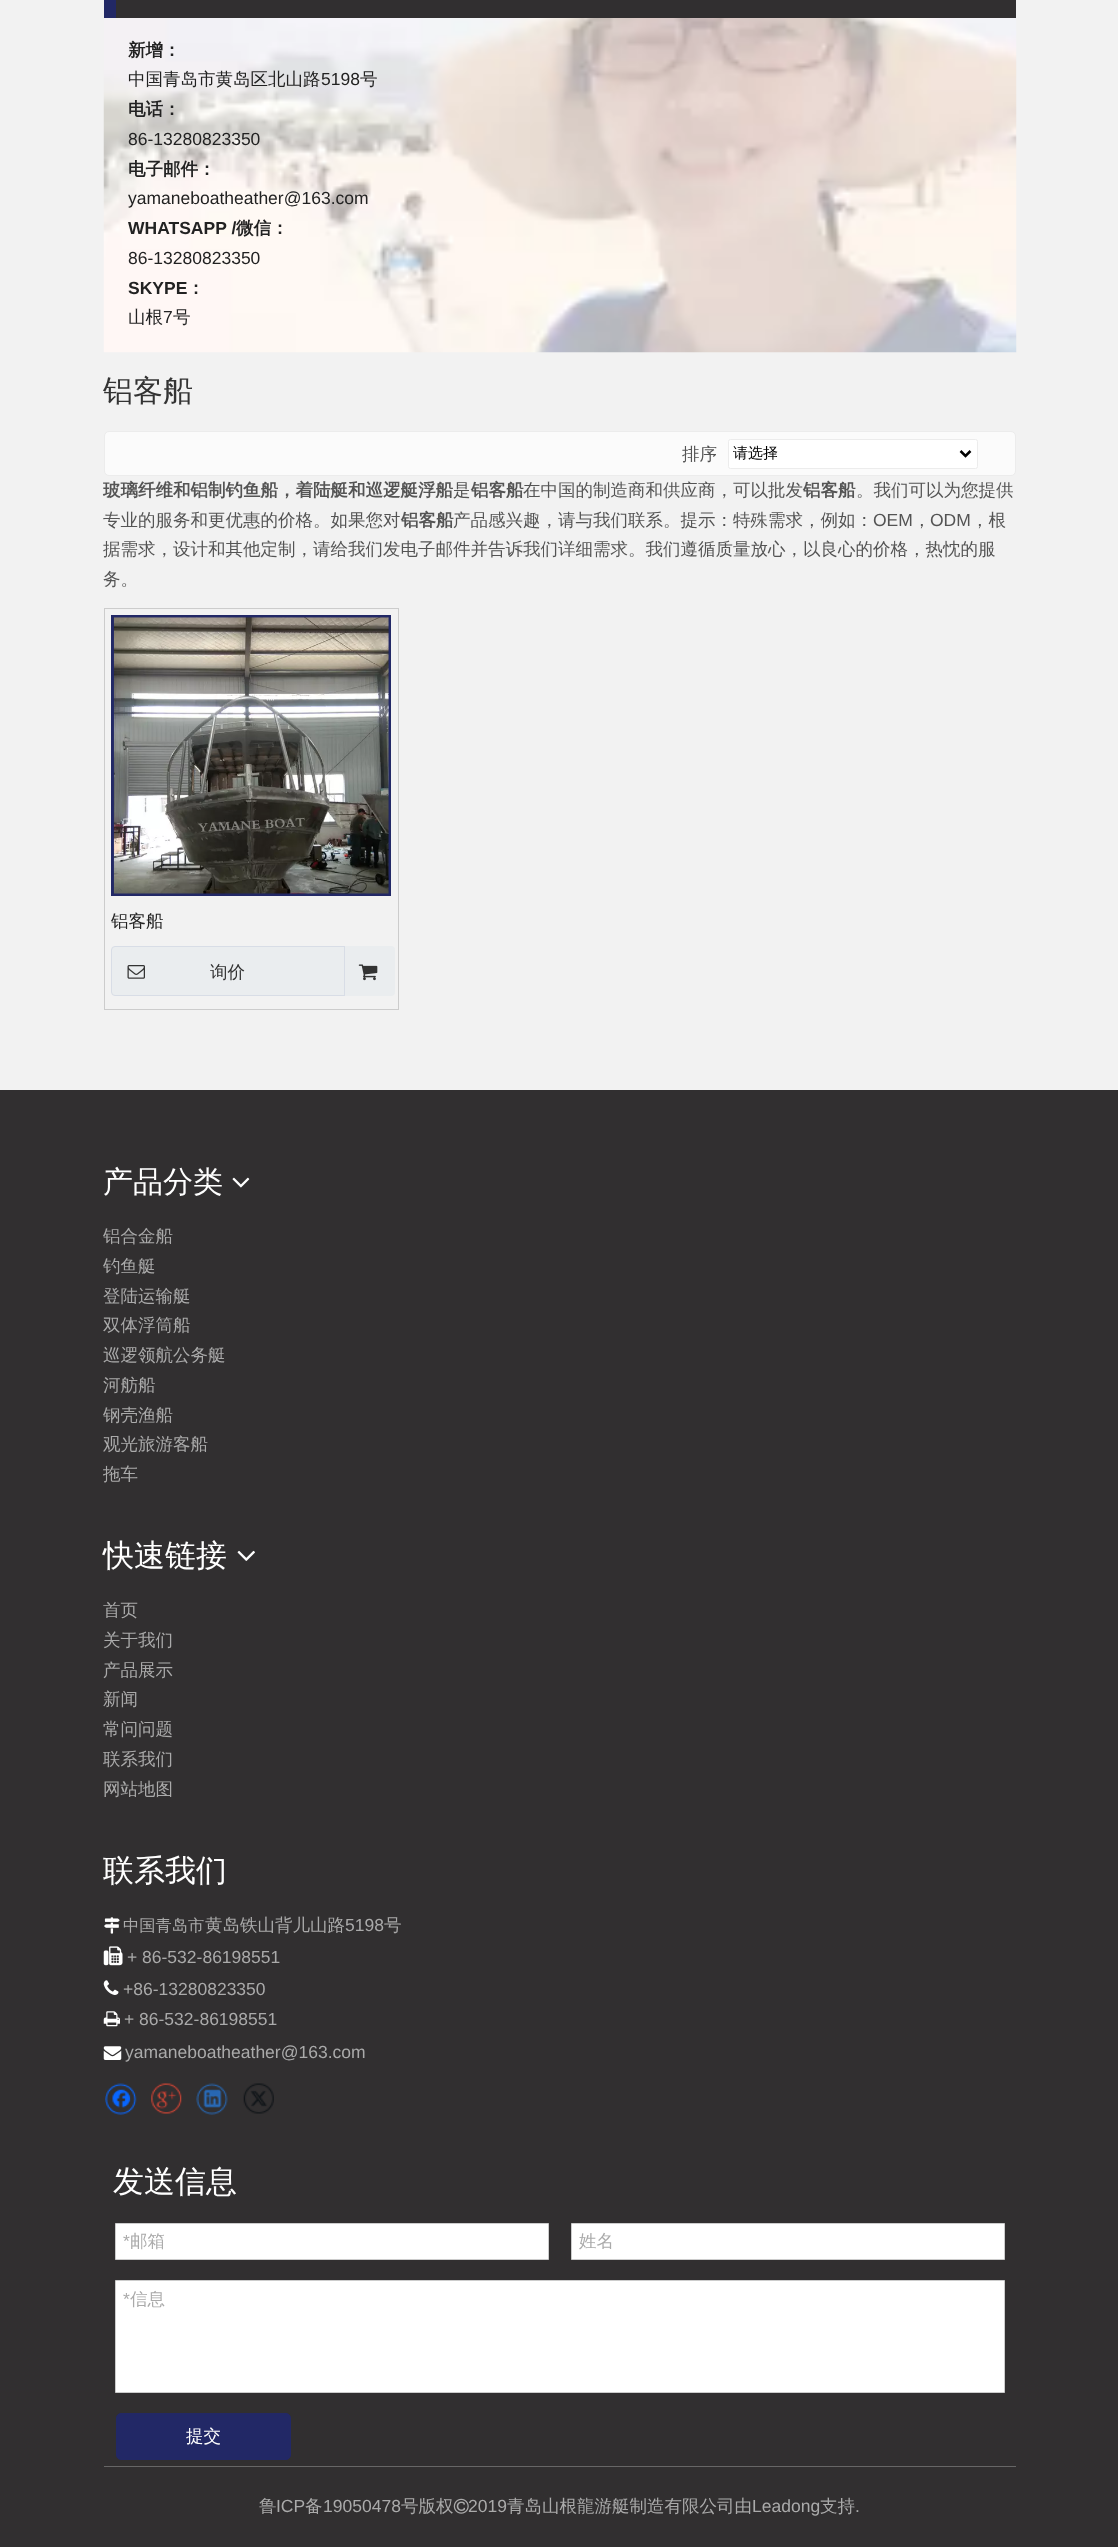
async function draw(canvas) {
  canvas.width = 1118
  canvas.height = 2547
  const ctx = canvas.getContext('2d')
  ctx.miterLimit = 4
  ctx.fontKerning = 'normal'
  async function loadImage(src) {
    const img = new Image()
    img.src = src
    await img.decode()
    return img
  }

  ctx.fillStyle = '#f2f2f2'
  ctx.fillRect(0, 0, 1118, 2547)
  ctx.drawImage(await loadImage('image0.png'), 103, 0, 914, 353)
  ctx.fillStyle = '#312f30'
  ctx.fillRect(116, 0, 900, 18)
  ctx.fillStyle = '#222866'
  ctx.fillRect(104, 0, 12, 18)
  ctx.font = 'bold 17.5px WenQuanYi Zen Hei'
  ctx.fillStyle = '#222'
  ctx.fillText('新增：', 128, 56)
  ctx.font = '500 17.5px WenQuanYi Zen Hei'
  ctx.fillText('中国青岛市黄岛区北山路', 128, 85)
  ctx.font = '17.5px Liberation Sans'
  ctx.fillText('5198', 321, 85)
  ctx.font = '500 17.5px WenQuanYi Zen Hei'
  ctx.fillText('号', 360, 85)
  ctx.font = 'bold 17.5px WenQuanYi Zen Hei'
  ctx.fillText('电话：', 128, 115)
  ctx.font = '17.5px Liberation Sans'
  ctx.fillText('86-13280823350', 128, 145)
  ctx.font = 'bold 17.5px WenQuanYi Zen Hei'
  ctx.fillText('电子邮件：', 128, 175)
  ctx.font = '17.5px Liberation Sans'
  ctx.fillText('yamaneboatheather@163.com', 128, 204)
  ctx.font = 'bold 17.5px Liberation Sans'
  ctx.fillText('WHATSAPP /', 128, 234)
  ctx.font = 'bold 17.5px WenQuanYi Zen Hei'
  ctx.fillText('微信：', 236, 234)
  ctx.font = '17.5px Liberation Sans'
  ctx.fillText('86-13280823350', 128, 264)
  ctx.font = 'bold 17.5px Liberation Sans'
  ctx.fillText('SKYPE', 128, 294)
  ctx.font = 'bold 17.5px WenQuanYi Zen Hei'
  ctx.fillText('：', 187, 294)
  ctx.font = '500 17.5px WenQuanYi Zen Hei'
  ctx.fillText('山根', 128, 323)
  ctx.font = '17.5px Liberation Sans'
  ctx.fillText('7', 163, 323)
  ctx.font = '500 17.5px WenQuanYi Zen Hei'
  ctx.fillText('号', 173, 323)
  ctx.font = '500 30px WenQuanYi Zen Hei'
  ctx.fillStyle = '#333'
  ctx.fillText('铝客船', 103, 401)
  ctx.fillStyle = '#fbfbfb'
  ctx.beginPath()
  ctx.roundRect(104.5, 431.5, 911, 44, 4.5)
  ctx.fill()
  ctx.strokeStyle = '#ececec'
  ctx.stroke()
  ctx.font = '500 17.5px WenQuanYi Zen Hei'
  ctx.fillStyle = '#545454'
  ctx.fillText('排序', 682, 460)
  ctx.fillStyle = '#fff'
  ctx.beginPath()
  ctx.roundRect(728.5, 439.5, 249, 29, 2)
  ctx.fill()
  ctx.stroke()
  ctx.beginPath()
  ctx.moveTo(960.5, 451)
  ctx.lineTo(965.5, 456)
  ctx.lineTo(970.5, 451)
  ctx.strokeStyle = '#000'
  ctx.lineWidth = 2.5
  ctx.stroke()
  ctx.font = '500 15px WenQuanYi Zen Hei'
  ctx.fillStyle = '#000'
  ctx.fillText('请选择', 733, 458)
  ctx.font = 'bold 17.5px WenQuanYi Zen Hei'
  ctx.fillStyle = '#545454'
  ctx.fillText('玻璃纤维和铝制钓鱼船，着陆艇和巡逻艇浮船', 103, 496)
  ctx.font = '500 17.5px WenQuanYi Zen Hei'
  ctx.fillText('是', 453, 496)
  ctx.font = 'bold 17.5px WenQuanYi Zen Hei'
  ctx.fillText('铝客船', 471, 496)
  ctx.font = '500 17.5px WenQuanYi Zen Hei'
  ctx.fillText('在中国的制造商和供应商，可以批发', 523, 496)
  ctx.font = 'bold 17.5px WenQuanYi Zen Hei'
  ctx.fillText('铝客船', 803, 496)
  ctx.font = '500 17.5px WenQuanYi Zen Hei'
  ctx.fillText('。我们可以为您提供', 856, 496)
  ctx.fillText('专业的服务和更优惠的价格。如果您对', 103, 526)
  ctx.font = 'bold 17.5px WenQuanYi Zen Hei'
  ctx.fillText('铝客船', 401, 526)
  ctx.font = '500 17.5px WenQuanYi Zen Hei'
  ctx.fillText('产品感兴趣，请与我们联系。提示：特殊需求，例如：', 453, 526)
  ctx.font = '17.5px Liberation Sans'
  ctx.fillText('OEM', 873, 526)
  ctx.font = '500 17.5px WenQuanYi Zen Hei'
  ctx.fillText('，', 913, 526)
  ctx.font = '17.5px Liberation Sans'
  ctx.fillText('ODM', 930, 526)
  ctx.font = '500 17.5px WenQuanYi Zen Hei'
  ctx.fillText('，根', 971, 526)
  ctx.fillText('据需求，设计和其他定制，请给我们发电子邮件并告诉我们详细需求。我们遵循质量放心，以良心的价格，热忱的服', 103, 555)
  ctx.fillText('务。', 103, 585)
  ctx.strokeStyle = '#ccc'
  ctx.lineWidth = 1
  ctx.strokeRect(104.5, 608.5, 294, 401)
  ctx.strokeStyle = '#222866'
  ctx.lineWidth = 3
  ctx.strokeRect(112.5, 616.5, 277, 278)
  ctx.drawImage(await loadImage('image1.png'), 113, 617, 276, 277)
  ctx.fillStyle = '#222'
  ctx.fillText('铝客船', 111, 927)
  ctx.fillStyle = '#eaedef'
  ctx.beginPath()
  ctx.roundRect(111.5, 946.5, 282, 49, 3.5)
  ctx.fill()
  ctx.strokeStyle = '#d8dde6'
  ctx.lineWidth = 1
  ctx.stroke()
  ctx.drawImage(await loadImage('image2.png'), 127, 965, 18, 14)
  ctx.fillStyle = '#333'
  ctx.fillText('询价', 210, 978)
  ctx.fillStyle = '#eaedef'
  ctx.beginPath()
  ctx.roundRect(344, 946, 51, 50, [0, 4, 4, 0])
  ctx.fill()
  ctx.fillStyle = '#d8dde6'
  ctx.fillRect(344, 946, 1, 50)
  ctx.drawImage(await loadImage('image3.png'), 358, 964, 20, 17)
  ctx.fillStyle = '#312f30'
  ctx.fillRect(0, 1090, 1118, 1457)
  ctx.font = '500 30px WenQuanYi Zen Hei'
  ctx.fillStyle = '#fff'
  ctx.fillText('产品分类', 103, 1192)
  ctx.drawImage(await loadImage('image4.png'), 232, 1177, 18, 11)
  ctx.font = '500 17.5px WenQuanYi Zen Hei'
  ctx.fillStyle = '#aaa'
  ctx.fillText('铝合金船', 103, 1242)
  ctx.fillText('钓鱼艇', 103, 1272)
  ctx.fillText('登陆运输艇', 103, 1302)
  ctx.fillText('双体浮筒船', 103, 1331)
  ctx.fillText('巡逻领航公务艇', 103, 1361)
  ctx.fillText('河舫船', 103, 1391)
  ctx.fillText('钢壳渔船', 103, 1421)
  ctx.fillText('观光旅游客船', 103, 1450)
  ctx.fillText('拖车', 103, 1480)
  ctx.font = '500 31px WenQuanYi Zen Hei'
  ctx.fillStyle = '#fff'
  ctx.fillText('快速链接', 103, 1566)
  ctx.drawImage(await loadImage('image5.png'), 237, 1550, 18, 11)
  ctx.font = '500 17.5px WenQuanYi Zen Hei'
  ctx.fillStyle = '#aaa'
  ctx.fillText('首页', 103, 1616)
  ctx.fillText('关于我们', 103, 1646)
  ctx.fillText('产品展示', 103, 1676)
  ctx.fillText('新闻', 103, 1705)
  ctx.fillText('常问问题', 103, 1735)
  ctx.fillText('联系我们', 103, 1765)
  ctx.fillText('网站地图', 103, 1795)
  ctx.font = '500 31px WenQuanYi Zen Hei'
  ctx.fillStyle = '#fff'
  ctx.fillText('联系我们', 103, 1881)
  ctx.drawImage(await loadImage('image6.png'), 104, 1917, 16, 17)
  ctx.font = '500 16.25px WenQuanYi Zen Hei'
  ctx.fillStyle = '#aaa'
  ctx.fillText('中国青岛市', 123, 1931)
  ctx.font = '500 17.5px WenQuanYi Zen Hei'
  ctx.fillText('黄岛铁山背儿山路', 205, 1931)
  ctx.font = '17.5px Liberation Sans'
  ctx.fillText('5198', 345, 1931)
  ctx.font = '500 17.5px WenQuanYi Zen Hei'
  ctx.fillText('号', 384, 1931)
  ctx.drawImage(await loadImage('image7.png'), 103, 1946, 20, 20)
  ctx.font = '17.5px Liberation Sans'
  ctx.fillText('+ 86-532-86198551', 127, 1963)
  ctx.drawImage(await loadImage('image8.png'), 103, 1980, 16, 15)
  ctx.fillText('+86-13280823350', 123, 1995)
  ctx.drawImage(await loadImage('image9.png'), 103, 2011, 17, 16)
  ctx.fillText('+ 86-532-86198551', 124, 2025)
  ctx.drawImage(await loadImage('image10.png'), 103, 2046, 19, 14)
  ctx.fillText('yamaneboatheather@163.com', 125, 2058)
  ctx.drawImage(await loadImage('image11.png'), 105, 2083, 32, 32)
  ctx.drawImage(await loadImage('image12.png'), 151, 2083, 31, 31)
  ctx.drawImage(await loadImage('image13.png'), 196, 2083, 32, 32)
  ctx.drawImage(await loadImage('image14.png'), 243, 2083, 31, 31)
  ctx.font = '500 31px WenQuanYi Zen Hei'
  ctx.fillStyle = '#fff'
  ctx.fillText('发送信息', 113, 2192)
  ctx.beginPath()
  ctx.rect(115.5, 2223.5, 433, 36)
  ctx.fill()
  ctx.strokeStyle = '#ccc'
  ctx.stroke()
  ctx.font = '17.5px Liberation Sans'
  ctx.fillStyle = '#aaa'
  ctx.fillText('*', 123, 2247)
  ctx.font = '500 17.5px WenQuanYi Zen Hei'
  ctx.fillText('邮箱', 130, 2247)
  ctx.fillStyle = '#fff'
  ctx.beginPath()
  ctx.rect(571.5, 2223.5, 433, 36)
  ctx.fill()
  ctx.stroke()
  ctx.fillStyle = '#aaa'
  ctx.fillText('姓名', 579, 2247)
  ctx.fillStyle = '#fff'
  ctx.beginPath()
  ctx.rect(115.5, 2280.5, 889, 112)
  ctx.fill()
  ctx.stroke()
  ctx.font = '17.5px Liberation Sans'
  ctx.fillStyle = '#aaa'
  ctx.fillText('*', 123, 2305)
  ctx.font = '500 17.5px WenQuanYi Zen Hei'
  ctx.fillText('信息', 130, 2305)
  ctx.fillStyle = '#222866'
  ctx.beginPath()
  ctx.roundRect(116.5, 2413.5, 174, 46, 4.5)
  ctx.fill()
  ctx.strokeStyle = '#222866'
  ctx.stroke()
  ctx.fillStyle = '#fff'
  ctx.fillText('提交', 186, 2442)
  ctx.fillStyle = '#666'
  ctx.fillRect(104, 2466, 912, 1)
  ctx.fillStyle = '#aaa'
  ctx.fillText('鲁', 259, 2512)
  ctx.font = '17.5px Liberation Sans'
  ctx.fillText('ICP', 276, 2512)
  ctx.font = '500 17.5px WenQuanYi Zen Hei'
  ctx.fillText('备', 305, 2512)
  ctx.font = '17.5px Liberation Sans'
  ctx.fillText('19050478', 323, 2512)
  ctx.font = '500 17.5px WenQuanYi Zen Hei'
  ctx.fillText('号版权', 401, 2512)
  ctx.drawImage(await loadImage('image15.png'), 453, 2498, 16, 16)
  ctx.font = '17.5px Liberation Sans'
  ctx.fillText('2019', 468, 2512)
  ctx.font = '500 17.5px WenQuanYi Zen Hei'
  ctx.fillText('青岛山根龍游艇制造有限公司由', 507, 2512)
  ctx.font = '17.5px Liberation Sans'
  ctx.fillText('Leadong', 752, 2512)
  ctx.font = '500 17.5px WenQuanYi Zen Hei'
  ctx.fillText('支持', 820, 2512)
  ctx.font = '17.5px Liberation Sans'
  ctx.fillText('.', 855, 2512)
}

draw(document.querySelector('canvas'))
